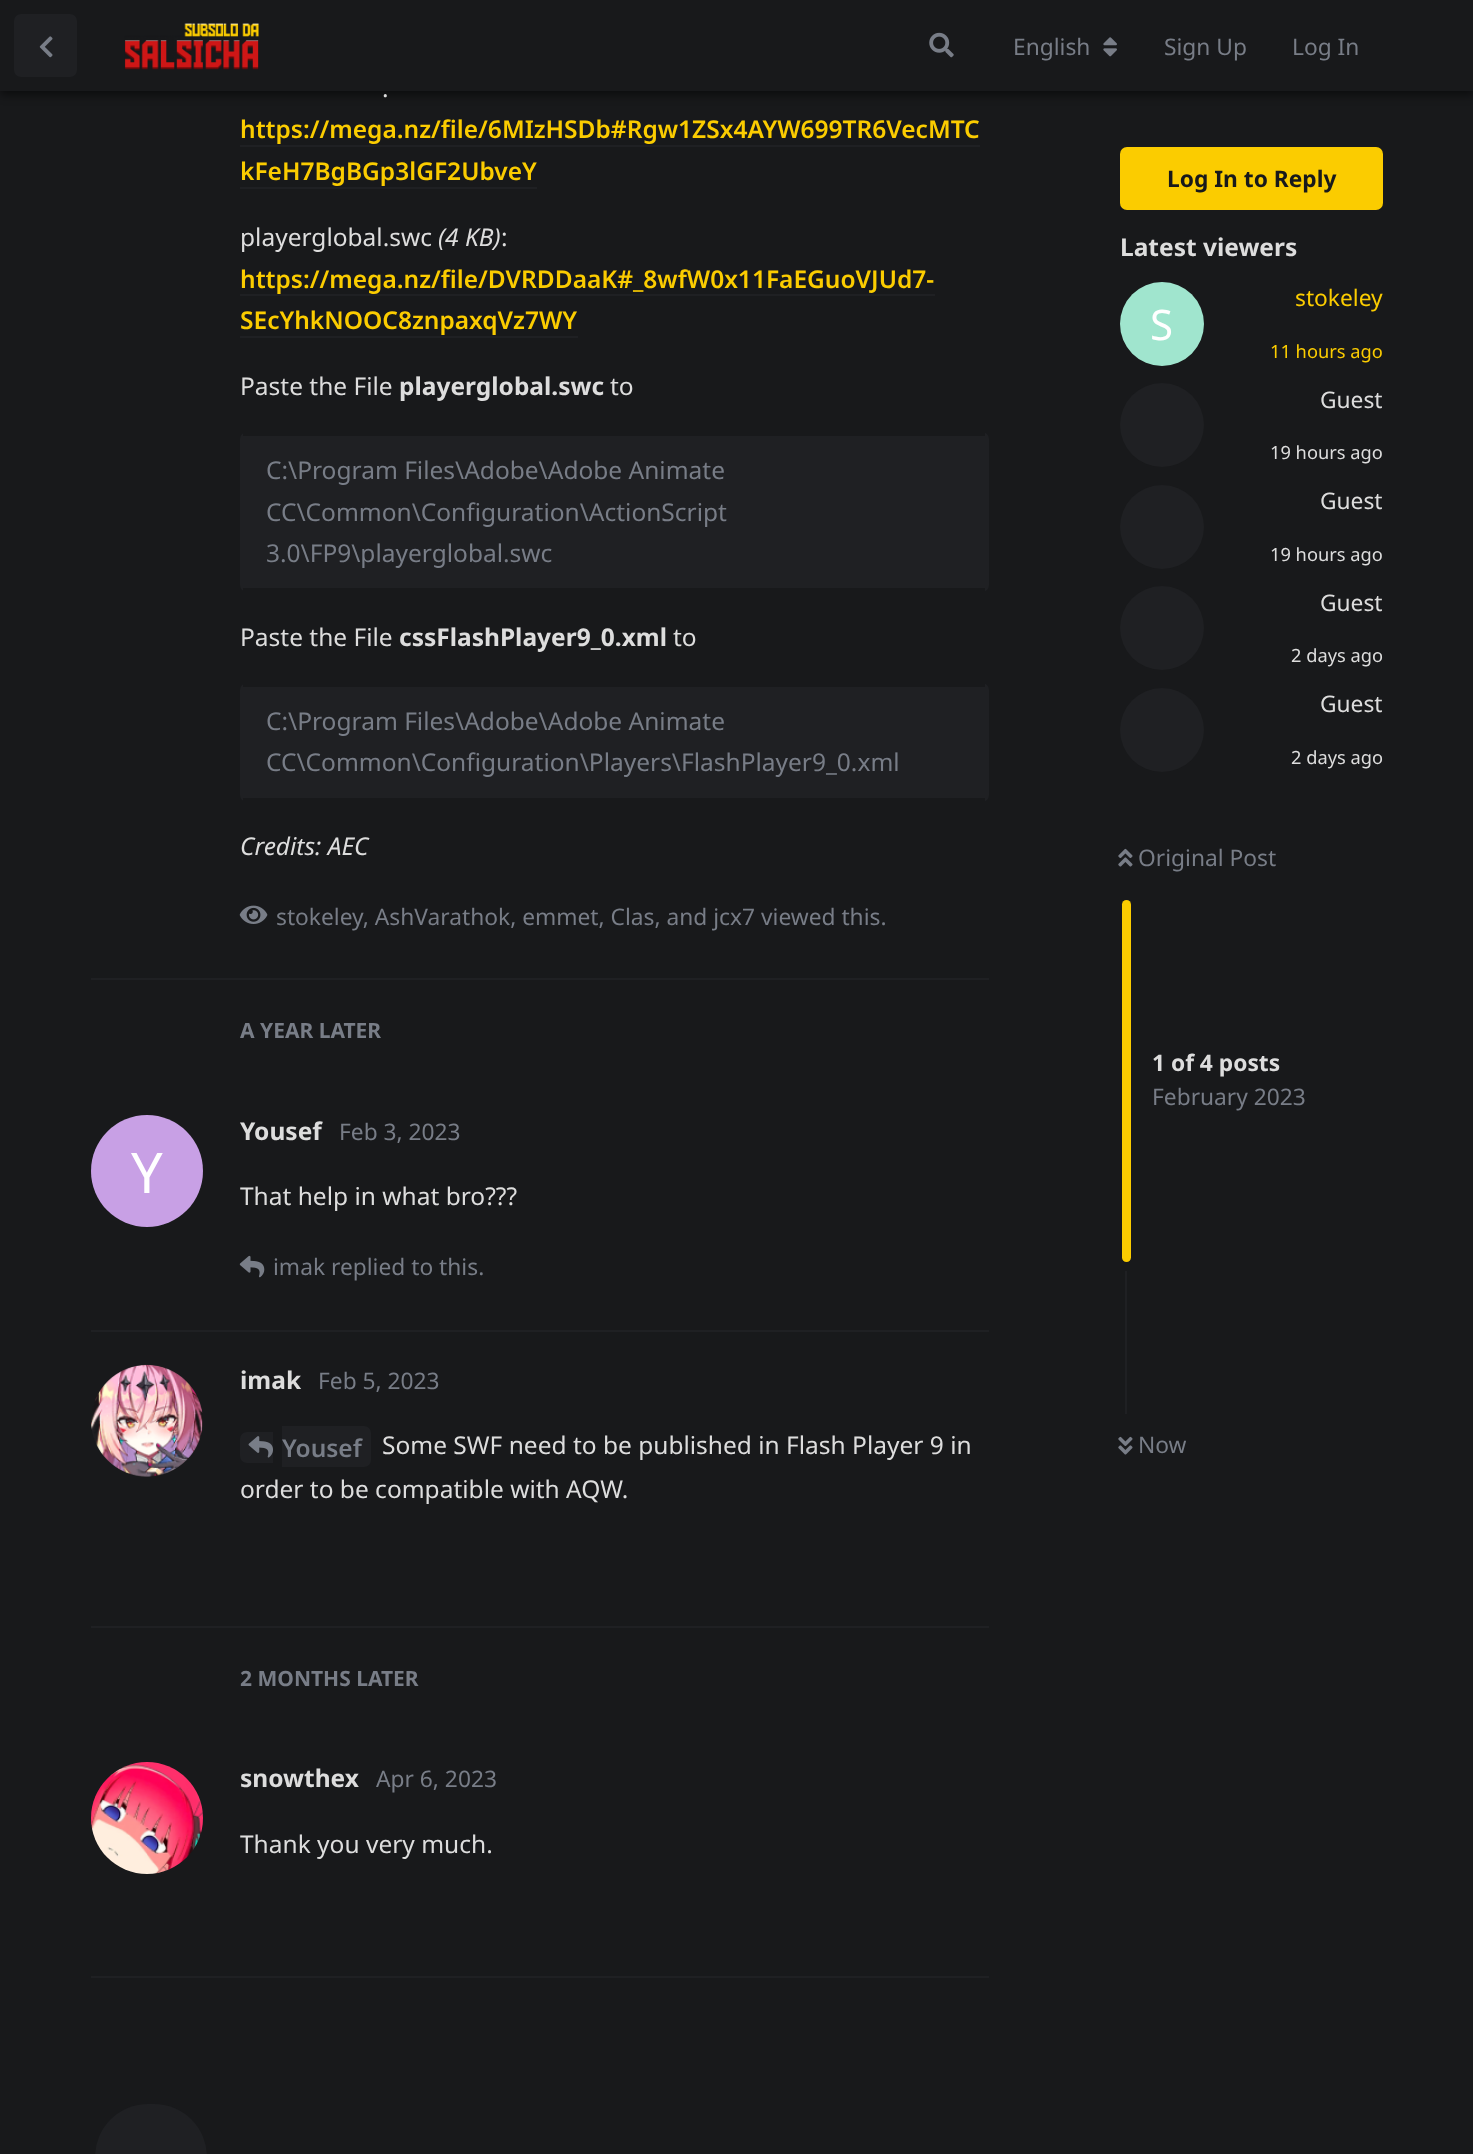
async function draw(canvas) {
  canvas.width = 1473
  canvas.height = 2154
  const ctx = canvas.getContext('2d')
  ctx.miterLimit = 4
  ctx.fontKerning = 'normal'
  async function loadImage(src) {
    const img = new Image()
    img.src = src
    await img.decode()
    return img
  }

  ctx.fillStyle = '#18191b'
  ctx.fillRect(0, 0, 1473, 2154)
  ctx.fillStyle = '#00000080'
  ctx.filter = 'blur(5px)'
  ctx.beginPath()
  ctx.rect(0, 4, 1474, 91)
  ctx.fill()
  ctx.filter = 'none'
  ctx.fillStyle = '#18191b'
  ctx.fillRect(0, 0, 1473, 91)
  ctx.fillStyle = '#1f2023'
  ctx.beginPath()
  ctx.roundRect(14, 14, 63, 63, 7)
  ctx.fill()
  ctx.drawImage(await loadImage('image0.png'), 39, 36, 14, 22)
  ctx.drawImage(await loadImage('image1.png'), 124, 23, 135, 47)
  ctx.drawImage(await loadImage('image2.png'), 929, 32, 25, 26)
  ctx.font = '22.75px Noto Sans'
  ctx.fillStyle = '#787d87'
  ctx.fillText('English', 1013, 55)
  ctx.drawImage(await loadImage('image3.png'), 1103, 37, 14, 20)
  ctx.fillText('Sign Up', 1164, 55)
  ctx.fillText('Log In', 1292, 55)
  ctx.fillStyle = '#1f2023'
  ctx.fillRect(91, 978, 898, 2)
  ctx.font = '24.5px Noto Sans'
  ctx.fillStyle = '#ddd'
  ctx.fillText('.', 382, 97)
  ctx.font = '600 24.5px Noto Sans'
  ctx.fillStyle = '#fbcc00'
  ctx.fillText('https://mega.nz/file/6MIzHSDb#Rgw1ZSx4AYW699TR6VecMTC', 240, 138)
  ctx.fillStyle = '#1f2023'
  ctx.fillRect(240, 145, 740, 2)
  ctx.fillStyle = '#fbcc00'
  ctx.fillText('kFeH7BgBGp3lGF2UbveY', 240, 180)
  ctx.fillStyle = '#1f2023'
  ctx.fillRect(240, 187, 297, 2)
  ctx.font = '24.5px Noto Sans'
  ctx.fillStyle = '#ddd'
  ctx.fillText('playerglobal.swc', 240, 246)
  ctx.font = 'italic 24.5px Noto Sans'
  ctx.fillText('(4 KB)', 438, 246)
  ctx.font = '24.5px Noto Sans'
  ctx.fillText(':', 501, 246)
  ctx.font = '600 24.5px Noto Sans'
  ctx.fillStyle = '#fbcc00'
  ctx.fillText('https://mega.nz/file/DVRDDaaK#_8wfW0x11FaEGuoVJUd7-', 240, 288)
  ctx.fillStyle = '#1f2023'
  ctx.fillRect(240, 294, 695, 2)
  ctx.fillStyle = '#fbcc00'
  ctx.fillText('SEcYhkNOOC8znpaxqVz7WY', 240, 329)
  ctx.fillStyle = '#1f2023'
  ctx.fillRect(240, 336, 338, 2)
  ctx.font = '24.5px Noto Sans'
  ctx.fillStyle = '#ddd'
  ctx.fillText('Paste the File', 240, 395)
  ctx.font = 'bold 24.5px Noto Sans'
  ctx.fillText('playerglobal.swc', 399, 395)
  ctx.font = '24.5px Noto Sans'
  ctx.fillText('to', 610, 395)
  ctx.fillStyle = '#1f2023'
  ctx.beginPath()
  ctx.roundRect(240, 432, 749, 160, 7)
  ctx.fill()
  ctx.fillStyle = '#18191b'
  ctx.fillRect(243, 432, 742, 4)
  ctx.fillRect(243, 588, 742, 4)
  ctx.fillStyle = '#787d87'
  ctx.fillText('C:\\Program Files\\Adobe\\Adobe Animate', 266, 479)
  ctx.fillText('CC\\Common\\Configuration\\ActionScript', 266, 521)
  ctx.fillText('3.0\\FP9\\playerglobal.swc', 266, 562)
  ctx.fillStyle = '#ddd'
  ctx.fillText('Paste the File', 240, 646)
  ctx.font = 'bold 24.5px Noto Sans'
  ctx.fillText('cssFlashPlayer9_0.xml', 399, 646)
  ctx.font = '24.5px Noto Sans'
  ctx.fillText('to', 673, 646)
  ctx.fillStyle = '#1f2023'
  ctx.beginPath()
  ctx.roundRect(240, 683, 749, 119, 7)
  ctx.fill()
  ctx.fillStyle = '#18191b'
  ctx.fillRect(243, 683, 742, 4)
  ctx.fillRect(243, 798, 742, 4)
  ctx.fillStyle = '#787d87'
  ctx.fillText('C:\\Program Files\\Adobe\\Adobe Animate', 266, 730)
  ctx.fillText('CC\\Common\\Configuration\\Players\\FlashPlayer9_0.xml', 266, 771)
  ctx.font = 'italic 24.5px Noto Sans'
  ctx.fillStyle = '#ddd'
  ctx.fillText('Credits: AEC', 240, 855)
  ctx.drawImage(await loadImage('image4.png'), 239, 905, 29, 19)
  ctx.font = '22.75px Noto Sans'
  ctx.fillStyle = '#787d87'
  ctx.fillText('stokeley, AshVarathok, emmet, Clas, and jcx7 viewed this.', 276, 925)
  ctx.fillStyle = '#1f2023'
  ctx.fillRect(91, 1330, 898, 2)
  ctx.font = 'bold 21px Noto Sans'
  ctx.fillStyle = '#787d87'
  ctx.fillText('A YEAR LATER', 240, 1038)
  ctx.font = 'bold 24.5px Noto Sans'
  ctx.fillStyle = '#ddd'
  ctx.fillText('Yousef', 240, 1140)
  ctx.fillStyle = '#c8a0e5'
  ctx.beginPath()
  ctx.arc(147, 1171, 56, 0, 2 * Math.PI)
  ctx.fill()
  ctx.font = '56px Noto Sans'
  ctx.fillStyle = '#fff'
  ctx.fillText('Y', 131, 1193)
  ctx.font = '22.75px Noto Sans'
  ctx.fillStyle = '#787d87'
  ctx.fillText('Feb 3, 2023', 339, 1140)
  ctx.font = '24.5px Noto Sans'
  ctx.fillStyle = '#ddd'
  ctx.fillText('That help in what bro???', 240, 1205)
  ctx.drawImage(await loadImage('image5.png'), 239, 1255, 26, 23)
  ctx.font = '22.75px Noto Sans'
  ctx.fillStyle = '#787d87'
  ctx.fillText('imak replied to this.', 273, 1275)
  ctx.fillStyle = '#1f2023'
  ctx.fillRect(91, 1626, 898, 2)
  ctx.beginPath()
  ctx.arc(147, 1421, 56, 0, 2 * Math.PI)
  ctx.fill()
  ctx.drawImage(await loadImage('image6.png'), 91, 1364, 112, 113)
  ctx.font = 'bold 24.5px Noto Sans'
  ctx.fillStyle = '#ddd'
  ctx.fillText('imak', 240, 1389)
  ctx.font = '22.75px Noto Sans'
  ctx.fillStyle = '#787d87'
  ctx.fillText('Feb 5, 2023', 318, 1389)
  ctx.fillStyle = '#1f2023'
  ctx.beginPath()
  ctx.roundRect(240, 1432, 33, 31, [7, 0, 0, 7])
  ctx.fill()
  ctx.beginPath()
  ctx.roundRect(282, 1426, 89, 41, [0, 7, 7, 0])
  ctx.fill()
  ctx.drawImage(await loadImage('image7.png'), 248, 1436, 25, 22)
  ctx.font = '600 24.5px Noto Sans'
  ctx.fillStyle = '#787d87'
  ctx.fillText('Yousef', 282, 1457)
  ctx.font = '24.5px Noto Sans'
  ctx.fillStyle = '#ddd'
  ctx.fillText('Some SWF need to be published in Flash Player 9 in', 382, 1454)
  ctx.fillText('order to be compatible with AQW.', 240, 1498)
  ctx.fillStyle = '#1f2023'
  ctx.fillRect(91, 1976, 898, 2)
  ctx.font = 'bold 21px Noto Sans'
  ctx.fillStyle = '#787d87'
  ctx.fillText('2 MONTHS LATER', 240, 1686)
  ctx.fillStyle = '#1f2023'
  ctx.beginPath()
  ctx.arc(147, 1818, 56, 0, 2 * Math.PI)
  ctx.fill()
  ctx.drawImage(await loadImage('image8.png'), 91, 1762, 112, 112)
  ctx.font = 'bold 24.5px Noto Sans'
  ctx.fillStyle = '#ddd'
  ctx.fillText('snowthex', 240, 1787)
  ctx.font = '22.75px Noto Sans'
  ctx.fillStyle = '#787d87'
  ctx.fillText('Apr 6, 2023', 376, 1787)
  ctx.font = '24.5px Noto Sans'
  ctx.fillStyle = '#ddd'
  ctx.fillText('Thank you very much.', 240, 1853)
  ctx.fillStyle = '#1f2023'
  ctx.beginPath()
  ctx.roundRect(95, 2104, 112, 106, 56)
  ctx.fill()
  ctx.fillStyle = '#fbcc00'
  ctx.beginPath()
  ctx.roundRect(1120, 147, 263, 63, 7)
  ctx.fill()
  ctx.font = 'bold 22.75px Noto Sans'
  ctx.fillStyle = '#18191b'
  ctx.fillText('Log In to Reply', 1167, 187)
  ctx.font = 'bold 24.5px Noto Sans'
  ctx.fillStyle = '#ddd'
  ctx.fillText('Latest viewers', 1120, 256)
  ctx.fillStyle = '#a0e5ce'
  ctx.beginPath()
  ctx.arc(1162, 324, 42, 0, 2 * Math.PI)
  ctx.fill()
  ctx.font = '42px Noto Sans'
  ctx.fillStyle = '#fff'
  ctx.fillText('S', 1150, 340)
  ctx.font = '22.75px Noto Sans'
  ctx.fillStyle = '#fbcc00'
  ctx.fillText('stokeley', 1295, 306)
  ctx.font = '18.25px Noto Sans'
  ctx.fillText('11 hours ago', 1270, 358)
  ctx.fillStyle = '#1f2023'
  ctx.beginPath()
  ctx.arc(1162, 425, 42, 0, 2 * Math.PI)
  ctx.fill()
  ctx.font = '22.75px Noto Sans'
  ctx.fillStyle = '#ddd'
  ctx.fillText('Guest', 1320, 408)
  ctx.font = '18.25px Noto Sans'
  ctx.fillText('19 hours ago', 1270, 459)
  ctx.fillStyle = '#1f2023'
  ctx.beginPath()
  ctx.arc(1162, 527, 42, 0, 2 * Math.PI)
  ctx.fill()
  ctx.font = '22.75px Noto Sans'
  ctx.fillStyle = '#ddd'
  ctx.fillText('Guest', 1320, 509)
  ctx.font = '18.25px Noto Sans'
  ctx.fillText('19 hours ago', 1270, 561)
  ctx.fillStyle = '#1f2023'
  ctx.beginPath()
  ctx.arc(1162, 628, 42, 0, 2 * Math.PI)
  ctx.fill()
  ctx.font = '22.75px Noto Sans'
  ctx.fillStyle = '#ddd'
  ctx.fillText('Guest', 1320, 611)
  ctx.font = '18.25px Noto Sans'
  ctx.fillText('2 days ago', 1291, 662)
  ctx.fillStyle = '#1f2023'
  ctx.beginPath()
  ctx.arc(1162, 730, 42, 0, 2 * Math.PI)
  ctx.fill()
  ctx.font = '22.75px Noto Sans'
  ctx.fillStyle = '#ddd'
  ctx.fillText('Guest', 1320, 712)
  ctx.font = '18.25px Noto Sans'
  ctx.fillText('2 days ago', 1291, 764)
  ctx.drawImage(await loadImage('image9.png'), 1118, 848, 15, 19)
  ctx.font = '22.75px Noto Sans'
  ctx.fillStyle = '#787d87'
  ctx.fillText('Original Post', 1138, 866)
  ctx.fillStyle = '#fbcc00'
  ctx.beginPath()
  ctx.roundRect(1122, 900, 9, 362, 4.5)
  ctx.fill()
  ctx.font = 'bold 22.75px Noto Sans'
  ctx.fillStyle = '#ddd'
  ctx.fillText('1 of 4 posts', 1152, 1071)
  ctx.font = '22.75px Noto Sans'
  ctx.fillStyle = '#787d87'
  ctx.fillText('February 2023', 1152, 1105)
  ctx.fillStyle = '#1f2023'
  ctx.fillRect(1125, 1271, 2, 143)
  ctx.drawImage(await loadImage('image10.png'), 1118, 1436, 15, 19)
  ctx.fillStyle = '#787d87'
  ctx.fillText('Now', 1138, 1453)
}

draw(document.querySelector('canvas'))
